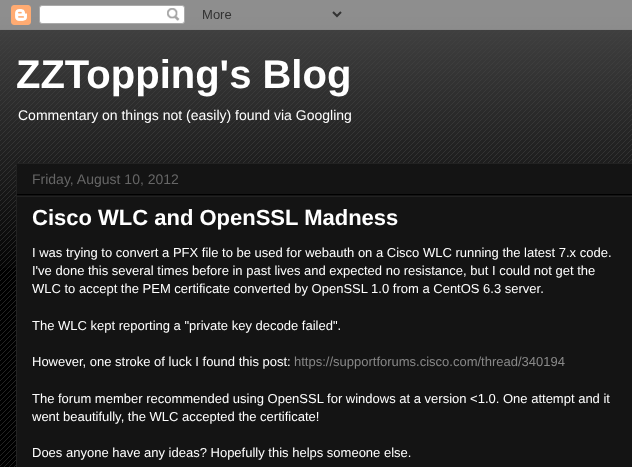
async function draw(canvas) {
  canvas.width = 632
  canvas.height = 467
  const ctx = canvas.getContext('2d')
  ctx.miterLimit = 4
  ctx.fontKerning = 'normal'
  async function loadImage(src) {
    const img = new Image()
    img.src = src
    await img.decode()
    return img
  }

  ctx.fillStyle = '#000'
  ctx.fillRect(0, 0, 632, 467)
  ctx.drawImage(await loadImage('image0.png'), 0, 13, 632, 454)
  ctx.drawImage(await loadImage('image1.png'), 0, 0, 632, 268)
  ctx.drawImage(await loadImage('image2.png'), 0, 0, 632, 30)
  ctx.font = 'bold 40px Liberation Sans'
  ctx.fillStyle = '#fff'
  ctx.fillText('ZZTopping\'s Blog', 16, 88)
  ctx.font = '14px Liberation Sans'
  ctx.fillText('Commentary on things not (easily) found via Googling', 18, 120)
  ctx.fillStyle = '#141414'
  ctx.beginPath()
  ctx.rect(16.5, 163.5, 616, 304)
  ctx.fill()
  ctx.strokeStyle = '#222'
  ctx.stroke()
  ctx.fillStyle = '#000'
  ctx.fillRect(17, 194, 615, 1)
  ctx.fillStyle = '#666'
  ctx.fillText('Friday, August 10, 2012', 32, 184)
  ctx.fillStyle = '#222'
  ctx.fillRect(17, 196, 615, 1)
  ctx.font = 'bold 22px Liberation Sans'
  ctx.fillStyle = '#fff'
  ctx.fillText('Cisco WLC and OpenSSL Madness', 32, 225)
  ctx.font = '13px Liberation Sans'
  ctx.fillText('I was trying to convert a PFX file to be used for webauth on a Cisco WLC running the latest 7.x code.', 32, 257)
  ctx.fillText('I\'ve done this several times before in past lives and expected no resistance, but I could not get the', 32, 275)
  ctx.fillText('WLC to accept the PEM certificate converted by OpenSSL 1.0 from a CentOS 6.3 server.', 32, 293)
  ctx.fillText('The WLC kept reporting a "private key decode failed".', 32, 330)
  ctx.fillText('However, one stroke of luck I found this post:', 32, 366)
  ctx.fillStyle = '#888'
  ctx.fillText('https://supportforums.cisco.com/thread/340194', 294, 366)
  ctx.fillStyle = '#fff'
  ctx.fillText('The forum member recommended using OpenSSL for windows at a version <1.0. One attempt and it', 32, 403)
  ctx.fillText('went beautifully, the WLC accepted the certificate!', 32, 421)
  ctx.fillText('Does anyone have any ideas? Hopefully this helps someone else.', 32, 457)
}

draw(document.querySelector('canvas'))
